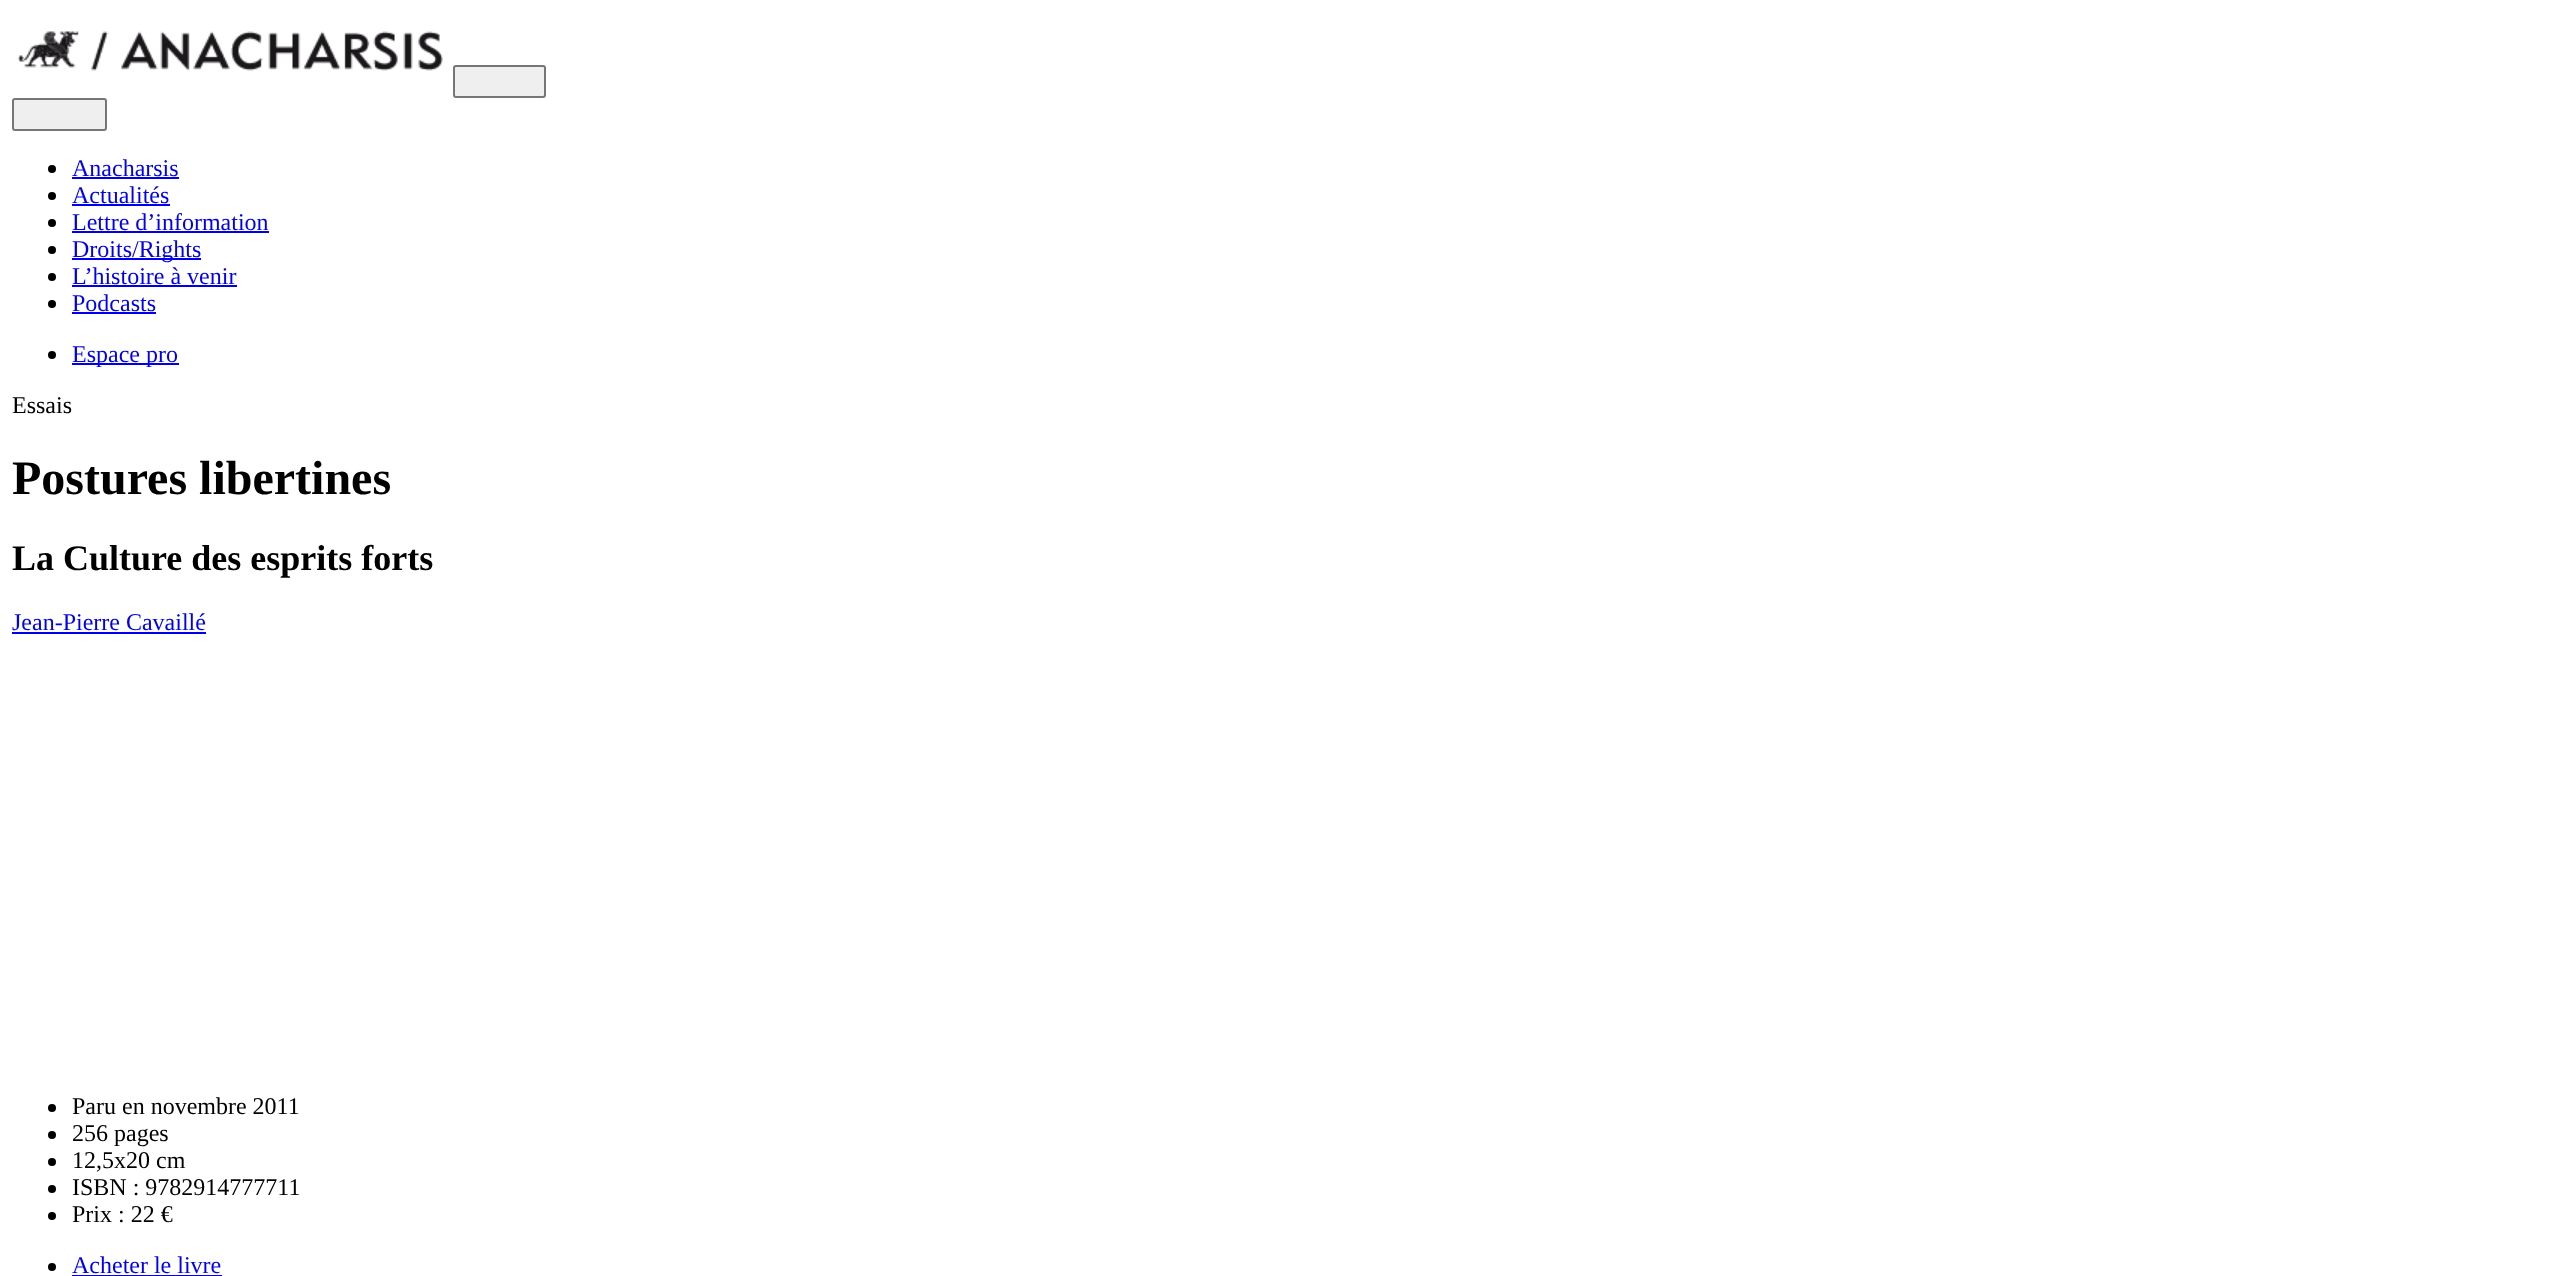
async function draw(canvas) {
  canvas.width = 2574
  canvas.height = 1276
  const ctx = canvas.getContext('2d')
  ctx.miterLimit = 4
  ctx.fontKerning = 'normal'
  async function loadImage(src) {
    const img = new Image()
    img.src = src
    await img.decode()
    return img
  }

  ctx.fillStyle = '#fff'
  ctx.fillRect(0, 0, 2574, 1276)
  ctx.drawImage(await loadImage('image0.png'), 17, 31, 426, 40)
  ctx.fillStyle = '#efefef'
  ctx.beginPath()
  ctx.roundRect(454, 66, 91, 31, 2)
  ctx.fill()
  ctx.strokeStyle = '#767676'
  ctx.lineWidth = 2
  ctx.stroke()
  ctx.beginPath()
  ctx.roundRect(13, 99, 93, 31, 2)
  ctx.fill()
  ctx.stroke()
  ctx.fillStyle = '#000'
  ctx.beginPath()
  ctx.arc(52, 169, 4, 0, 2 * Math.PI)
  ctx.fill()
  ctx.font = '24px Liberation Serif'
  ctx.fillStyle = '#00e'
  ctx.fillText('Anacharsis', 72, 176)
  ctx.fillRect(72, 177, 107, 2)
  ctx.fillStyle = '#000'
  ctx.beginPath()
  ctx.arc(52, 196, 4, 0, 2 * Math.PI)
  ctx.fill()
  ctx.fillStyle = '#00e'
  ctx.fillText('Actualités', 72, 203)
  ctx.fillRect(72, 204, 98, 2)
  ctx.fillStyle = '#000'
  ctx.beginPath()
  ctx.arc(52, 223, 4, 0, 2 * Math.PI)
  ctx.fill()
  ctx.fillStyle = '#00e'
  ctx.fillText('Lettre d’information', 72, 230)
  ctx.fillRect(72, 231, 197, 2)
  ctx.fillStyle = '#000'
  ctx.beginPath()
  ctx.arc(52, 250, 4, 0, 2 * Math.PI)
  ctx.fill()
  ctx.fillStyle = '#00e'
  ctx.fillRect(72, 258, 129, 2)
  ctx.fillText('Droits/Rights', 72, 257)
  ctx.fillStyle = '#000'
  ctx.beginPath()
  ctx.arc(52, 277, 4, 0, 2 * Math.PI)
  ctx.fill()
  ctx.fillStyle = '#00e'
  ctx.fillText('L’histoire à venir', 72, 284)
  ctx.fillRect(72, 285, 165, 2)
  ctx.fillStyle = '#000'
  ctx.beginPath()
  ctx.arc(52, 304, 4, 0, 2 * Math.PI)
  ctx.fill()
  ctx.fillStyle = '#00e'
  ctx.fillText('Podcasts', 72, 311)
  ctx.fillRect(72, 312, 84, 2)
  ctx.fillStyle = '#000'
  ctx.beginPath()
  ctx.arc(52, 355, 4, 0, 2 * Math.PI)
  ctx.fill()
  ctx.fillStyle = '#00e'
  ctx.fillRect(72, 363, 107, 2)
  ctx.fillText('Espace pro', 72, 362)
  ctx.fillStyle = '#000'
  ctx.fillText('Essais', 12, 413)
  ctx.font = 'bold 48px Liberation Serif'
  ctx.fillText('Postures libertines', 12, 494)
  ctx.font = 'bold 36px Liberation Serif'
  ctx.fillText('La Culture des esprits forts', 12, 570)
  ctx.font = '24px Liberation Serif'
  ctx.fillStyle = '#00e'
  ctx.fillText('Jean-Pierre Cavaillé', 12, 630)
  ctx.fillRect(12, 632, 194, 2)
  ctx.fillStyle = '#000'
  ctx.beginPath()
  ctx.arc(52, 1108, 4, 0, 2 * Math.PI)
  ctx.fill()
  ctx.fillText('Paru en novembre 2011', 72, 1114)
  ctx.beginPath()
  ctx.arc(52, 1135, 4, 0, 2 * Math.PI)
  ctx.fill()
  ctx.fillText('256 pages', 72, 1141)
  ctx.beginPath()
  ctx.arc(52, 1162, 4, 0, 2 * Math.PI)
  ctx.fill()
  ctx.fillText('12,5x20 cm', 72, 1168)
  ctx.beginPath()
  ctx.arc(52, 1189, 4, 0, 2 * Math.PI)
  ctx.fill()
  ctx.fillText('ISBN : 9782914777711', 72, 1195)
  ctx.beginPath()
  ctx.arc(52, 1216, 4, 0, 2 * Math.PI)
  ctx.fill()
  ctx.fillText('Prix : 22 €', 72, 1222)
  ctx.beginPath()
  ctx.arc(52, 1267, 4, 0, 2 * Math.PI)
  ctx.fill()
  ctx.fillStyle = '#00e'
  ctx.fillText('Acheter le livre', 72, 1273)
  ctx.fillRect(72, 1275, 150, 1)
}

draw(document.querySelector('canvas'))
